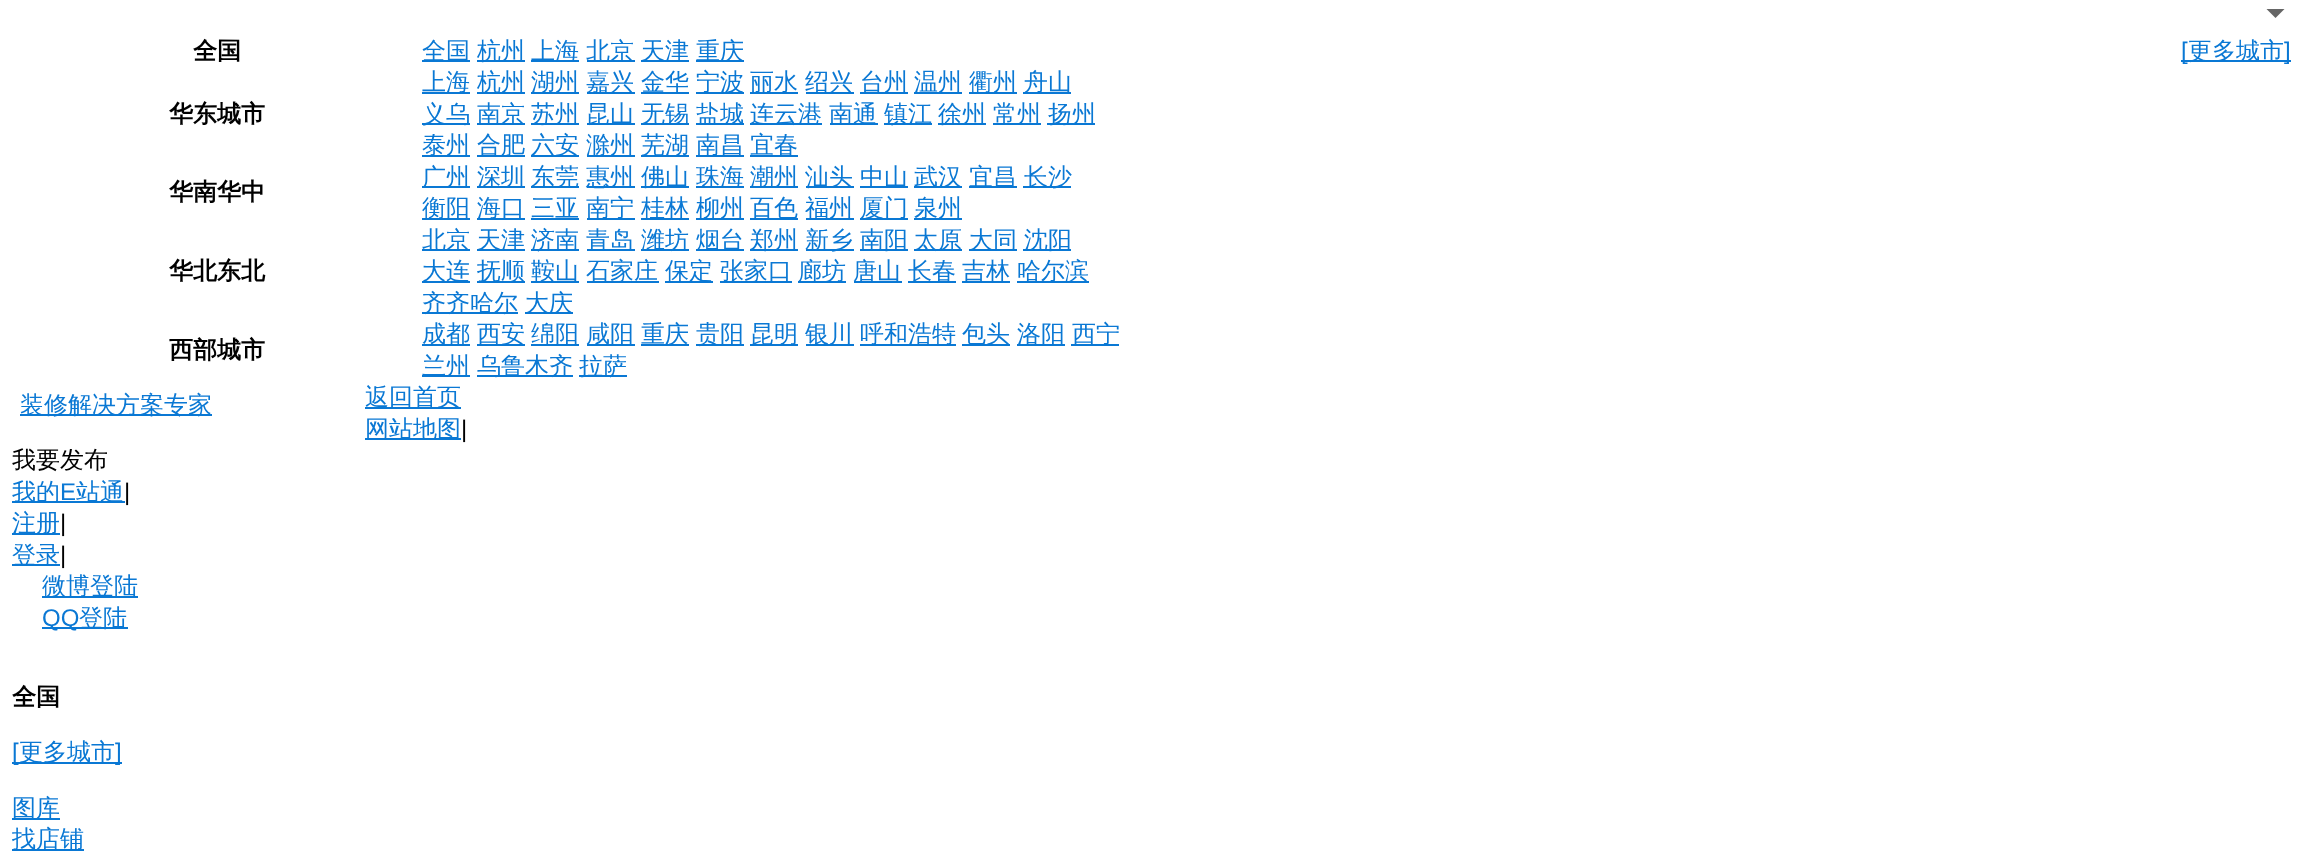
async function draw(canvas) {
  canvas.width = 2302
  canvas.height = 860
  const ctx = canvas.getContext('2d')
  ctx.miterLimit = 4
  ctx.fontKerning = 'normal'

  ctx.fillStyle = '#fff'
  ctx.fillRect(0, 0, 2302, 860)
  ctx.fillStyle = '#666'
  ctx.beginPath()
  ctx.moveTo(2266.5, 9)
  ctx.lineTo(2284.5, 9)
  ctx.lineTo(2275.5, 18)
  ctx.closePath()
  ctx.fill()
  ctx.font = 'bold 24px WenQuanYi Zen Hei'
  ctx.fillStyle = '#000'
  ctx.fillText('全国', 193, 59)
  ctx.fillStyle = '#0a78d4'
  ctx.fillRect(422, 60, 48, 2)
  ctx.font = '500 24px WenQuanYi Zen Hei'
  ctx.fillText('全国', 422, 59)
  ctx.fillRect(477, 60, 48, 2)
  ctx.fillText('杭州', 477, 59)
  ctx.fillRect(531, 60, 48, 2)
  ctx.fillText('上海', 531, 59)
  ctx.fillRect(587, 60, 48, 2)
  ctx.fillText('北京', 586, 59)
  ctx.fillRect(641, 60, 48, 2)
  ctx.fillText('天津', 641, 59)
  ctx.fillRect(696, 60, 48, 2)
  ctx.fillText('重庆', 696, 59)
  ctx.fillRect(2181, 60, 110, 2)
  ctx.font = '24px Liberation Sans'
  ctx.fillText('[', 2181, 59)
  ctx.font = '500 24px WenQuanYi Zen Hei'
  ctx.fillText('更多城市', 2188, 59)
  ctx.font = '24px Liberation Sans'
  ctx.fillText(']', 2284, 59)
  ctx.font = 'bold 24px WenQuanYi Zen Hei'
  ctx.fillStyle = '#000'
  ctx.fillText('华东城市', 169, 122)
  ctx.fillStyle = '#0a78d4'
  ctx.fillRect(422, 92, 48, 2)
  ctx.font = '500 24px WenQuanYi Zen Hei'
  ctx.fillText('上海', 422, 90)
  ctx.fillRect(477, 92, 48, 2)
  ctx.fillText('杭州', 477, 90)
  ctx.fillRect(531, 92, 48, 2)
  ctx.fillText('湖州', 531, 90)
  ctx.fillRect(587, 92, 48, 2)
  ctx.fillText('嘉兴', 586, 90)
  ctx.fillRect(641, 92, 48, 2)
  ctx.fillText('金华', 641, 90)
  ctx.fillRect(696, 92, 48, 2)
  ctx.fillText('宁波', 696, 90)
  ctx.fillRect(750, 92, 48, 2)
  ctx.fillText('丽水', 750, 90)
  ctx.fillRect(806, 92, 48, 2)
  ctx.fillText('绍兴', 805, 90)
  ctx.fillRect(860, 92, 48, 2)
  ctx.fillText('台州', 860, 90)
  ctx.fillRect(914, 92, 48, 2)
  ctx.fillText('温州', 914, 90)
  ctx.fillRect(969, 92, 48, 2)
  ctx.fillText('衢州', 969, 90)
  ctx.fillRect(1023, 92, 48, 2)
  ctx.fillText('舟山', 1024, 90)
  ctx.fillRect(422, 123, 48, 2)
  ctx.fillText('义乌', 422, 122)
  ctx.fillRect(477, 123, 48, 2)
  ctx.fillText('南京', 477, 122)
  ctx.fillRect(531, 123, 48, 2)
  ctx.fillText('苏州', 531, 122)
  ctx.fillRect(587, 123, 48, 2)
  ctx.fillText('昆山', 586, 122)
  ctx.fillRect(641, 123, 48, 2)
  ctx.fillText('无锡', 641, 122)
  ctx.fillRect(696, 123, 48, 2)
  ctx.fillText('盐城', 696, 122)
  ctx.fillRect(750, 123, 72, 2)
  ctx.fillText('连云港', 750, 122)
  ctx.fillRect(830, 123, 48, 2)
  ctx.fillText('南通', 829, 122)
  ctx.fillRect(884, 123, 48, 2)
  ctx.fillText('镇江', 884, 122)
  ctx.fillRect(938, 123, 48, 2)
  ctx.fillText('徐州', 938, 122)
  ctx.fillRect(993, 123, 48, 2)
  ctx.fillText('常州', 993, 122)
  ctx.fillRect(1047, 123, 48, 2)
  ctx.fillText('扬州', 1048, 122)
  ctx.fillRect(422, 155, 48, 2)
  ctx.fillText('泰州', 422, 153)
  ctx.fillRect(477, 155, 48, 2)
  ctx.fillText('合肥', 477, 153)
  ctx.fillRect(531, 155, 48, 2)
  ctx.fillText('六安', 531, 153)
  ctx.fillRect(587, 155, 48, 2)
  ctx.fillText('滁州', 586, 153)
  ctx.fillRect(641, 155, 48, 2)
  ctx.fillText('芜湖', 641, 153)
  ctx.fillRect(696, 155, 48, 2)
  ctx.fillText('南昌', 696, 153)
  ctx.fillRect(750, 155, 48, 2)
  ctx.fillText('宜春', 750, 153)
  ctx.font = 'bold 24px WenQuanYi Zen Hei'
  ctx.fillStyle = '#000'
  ctx.fillText('华南华中', 169, 200)
  ctx.fillStyle = '#0a78d4'
  ctx.fillRect(422, 186, 48, 2)
  ctx.font = '500 24px WenQuanYi Zen Hei'
  ctx.fillText('广州', 422, 185)
  ctx.fillRect(477, 186, 48, 2)
  ctx.fillText('深圳', 477, 185)
  ctx.fillRect(531, 186, 48, 2)
  ctx.fillText('东莞', 531, 185)
  ctx.fillRect(587, 186, 48, 2)
  ctx.fillText('惠州', 586, 185)
  ctx.fillRect(641, 186, 48, 2)
  ctx.fillText('佛山', 641, 185)
  ctx.fillRect(696, 186, 48, 2)
  ctx.fillText('珠海', 696, 185)
  ctx.fillRect(750, 186, 48, 2)
  ctx.fillText('潮州', 750, 185)
  ctx.fillRect(806, 186, 48, 2)
  ctx.fillText('汕头', 805, 185)
  ctx.fillRect(860, 186, 48, 2)
  ctx.fillText('中山', 860, 185)
  ctx.fillRect(914, 186, 48, 2)
  ctx.fillText('武汉', 914, 185)
  ctx.fillRect(969, 186, 48, 2)
  ctx.fillText('宜昌', 969, 185)
  ctx.fillRect(1023, 186, 48, 2)
  ctx.fillText('长沙', 1024, 185)
  ctx.fillRect(422, 218, 48, 2)
  ctx.fillText('衡阳', 422, 216)
  ctx.fillRect(477, 218, 48, 2)
  ctx.fillText('海口', 477, 216)
  ctx.fillText('三亚', 531, 216)
  ctx.fillRect(531, 218, 48, 2)
  ctx.fillRect(587, 218, 48, 2)
  ctx.fillText('南宁', 586, 216)
  ctx.fillRect(641, 218, 48, 2)
  ctx.fillText('桂林', 641, 216)
  ctx.fillRect(696, 218, 48, 2)
  ctx.fillText('柳州', 696, 216)
  ctx.fillRect(750, 218, 48, 2)
  ctx.fillText('百色', 750, 216)
  ctx.fillRect(806, 218, 48, 2)
  ctx.fillText('福州', 805, 216)
  ctx.fillRect(860, 218, 48, 2)
  ctx.fillText('厦门', 860, 216)
  ctx.fillRect(914, 218, 48, 2)
  ctx.fillText('泉州', 914, 216)
  ctx.font = 'bold 24px WenQuanYi Zen Hei'
  ctx.fillStyle = '#000'
  ctx.fillText('华北东北', 169, 279)
  ctx.fillStyle = '#0a78d4'
  ctx.fillRect(422, 249, 48, 2)
  ctx.font = '500 24px WenQuanYi Zen Hei'
  ctx.fillText('北京', 422, 248)
  ctx.fillRect(477, 249, 48, 2)
  ctx.fillText('天津', 477, 248)
  ctx.fillRect(531, 249, 48, 2)
  ctx.fillText('济南', 531, 248)
  ctx.fillRect(587, 249, 48, 2)
  ctx.fillText('青岛', 586, 248)
  ctx.fillRect(641, 249, 48, 2)
  ctx.fillText('潍坊', 641, 248)
  ctx.fillRect(696, 249, 48, 2)
  ctx.fillText('烟台', 696, 248)
  ctx.fillRect(750, 249, 48, 2)
  ctx.fillText('郑州', 750, 248)
  ctx.fillRect(806, 249, 48, 2)
  ctx.fillText('新乡', 805, 248)
  ctx.fillRect(860, 249, 48, 2)
  ctx.fillText('南阳', 860, 248)
  ctx.fillRect(914, 249, 48, 2)
  ctx.fillText('太原', 914, 248)
  ctx.fillRect(969, 249, 48, 2)
  ctx.fillText('大同', 969, 248)
  ctx.fillRect(1023, 249, 48, 2)
  ctx.fillText('沈阳', 1024, 248)
  ctx.fillRect(422, 281, 48, 2)
  ctx.fillText('大连', 422, 279)
  ctx.fillRect(477, 281, 48, 2)
  ctx.fillText('抚顺', 477, 279)
  ctx.fillRect(531, 281, 48, 2)
  ctx.fillText('鞍山', 531, 279)
  ctx.fillRect(587, 281, 72, 2)
  ctx.fillText('石家庄', 586, 279)
  ctx.fillRect(665, 281, 48, 2)
  ctx.fillText('保定', 665, 279)
  ctx.fillRect(720, 281, 72, 2)
  ctx.fillText('张家口', 720, 279)
  ctx.fillRect(798, 281, 48, 2)
  ctx.fillText('廊坊', 798, 279)
  ctx.fillRect(854, 281, 48, 2)
  ctx.fillText('唐山', 853, 279)
  ctx.fillRect(908, 281, 48, 2)
  ctx.fillText('长春', 908, 279)
  ctx.fillRect(962, 281, 48, 2)
  ctx.fillText('吉林', 962, 279)
  ctx.fillRect(1017, 281, 72, 2)
  ctx.fillText('哈尔滨', 1017, 279)
  ctx.fillRect(422, 312, 96, 2)
  ctx.fillText('齐齐哈尔', 422, 311)
  ctx.fillRect(525, 312, 48, 2)
  ctx.fillText('大庆', 525, 311)
  ctx.font = 'bold 24px WenQuanYi Zen Hei'
  ctx.fillStyle = '#000'
  ctx.fillText('西部城市', 169, 358)
  ctx.fillStyle = '#0a78d4'
  ctx.fillRect(422, 344, 48, 2)
  ctx.font = '500 24px WenQuanYi Zen Hei'
  ctx.fillText('成都', 422, 342)
  ctx.fillRect(477, 344, 48, 2)
  ctx.fillText('西安', 477, 342)
  ctx.fillRect(531, 344, 48, 2)
  ctx.fillText('绵阳', 531, 342)
  ctx.fillRect(587, 344, 48, 2)
  ctx.fillText('咸阳', 586, 342)
  ctx.fillRect(641, 344, 48, 2)
  ctx.fillText('重庆', 641, 342)
  ctx.fillRect(696, 344, 48, 2)
  ctx.fillText('贵阳', 696, 342)
  ctx.fillRect(750, 344, 48, 2)
  ctx.fillText('昆明', 750, 342)
  ctx.fillRect(806, 344, 48, 2)
  ctx.fillText('银川', 805, 342)
  ctx.fillRect(860, 344, 96, 2)
  ctx.fillText('呼和浩特', 860, 342)
  ctx.fillRect(962, 344, 48, 2)
  ctx.fillText('包头', 962, 342)
  ctx.fillRect(1017, 344, 48, 2)
  ctx.fillText('洛阳', 1017, 342)
  ctx.fillRect(1071, 344, 48, 2)
  ctx.fillText('西宁', 1072, 342)
  ctx.fillRect(422, 375, 48, 2)
  ctx.fillText('兰州', 422, 374)
  ctx.fillRect(477, 375, 96, 2)
  ctx.fillText('乌鲁木齐', 477, 374)
  ctx.fillRect(579, 375, 48, 2)
  ctx.fillText('拉萨', 579, 374)
  ctx.fillRect(20, 414, 192, 2)
  ctx.fillText('装修解决方案专家', 20, 413)
  ctx.fillRect(365, 407, 96, 2)
  ctx.fillText('返回首页', 365, 405)
  ctx.fillRect(365, 438, 96, 2)
  ctx.fillText('网站地图', 365, 437)
  ctx.font = '24px Liberation Sans'
  ctx.fillStyle = '#000'
  ctx.fillText('|', 461, 437)
  ctx.font = '500 24px WenQuanYi Zen Hei'
  ctx.fillText('我要发布', 12, 468)
  ctx.fillStyle = '#0a78d4'
  ctx.fillRect(12, 501, 113, 2)
  ctx.fillText('我的', 12, 500)
  ctx.font = '24px Liberation Sans'
  ctx.fillText('E', 60, 500)
  ctx.font = '500 24px WenQuanYi Zen Hei'
  ctx.fillText('站通', 76, 500)
  ctx.font = '24px Liberation Sans'
  ctx.fillStyle = '#000'
  ctx.fillText('|', 124, 500)
  ctx.fillStyle = '#0a78d4'
  ctx.fillRect(12, 533, 48, 2)
  ctx.font = '500 24px WenQuanYi Zen Hei'
  ctx.fillText('注册', 12, 531)
  ctx.font = '24px Liberation Sans'
  ctx.fillStyle = '#000'
  ctx.fillText('|', 60, 531)
  ctx.fillStyle = '#0a78d4'
  ctx.fillRect(12, 564, 48, 2)
  ctx.font = '500 24px WenQuanYi Zen Hei'
  ctx.fillText('登录', 12, 563)
  ctx.font = '24px Liberation Sans'
  ctx.fillStyle = '#000'
  ctx.fillText('|', 60, 563)
  ctx.fillStyle = '#0a78d4'
  ctx.fillRect(42, 596, 96, 2)
  ctx.font = '500 24px WenQuanYi Zen Hei'
  ctx.fillText('微博登陆', 42, 594)
  ctx.fillRect(42, 627, 86, 2)
  ctx.font = '24px Liberation Sans'
  ctx.fillText('QQ', 42, 626)
  ctx.font = '500 24px WenQuanYi Zen Hei'
  ctx.fillText('登陆', 79, 626)
  ctx.font = 'bold 24px WenQuanYi Zen Hei'
  ctx.fillStyle = '#000'
  ctx.fillText('全国', 12, 705)
  ctx.fillStyle = '#0a78d4'
  ctx.fillRect(12, 762, 110, 2)
  ctx.font = '24px Liberation Sans'
  ctx.fillText('[', 12, 760)
  ctx.font = '500 24px WenQuanYi Zen Hei'
  ctx.fillText('更多城市', 19, 760)
  ctx.font = '24px Liberation Sans'
  ctx.fillText(']', 115, 760)
  ctx.fillRect(12, 818, 48, 2)
  ctx.font = '500 24px WenQuanYi Zen Hei'
  ctx.fillText('图库', 12, 816)
  ctx.fillRect(12, 849, 72, 2)
  ctx.fillText('找店铺', 12, 847)
}

draw(document.querySelector('canvas'))
